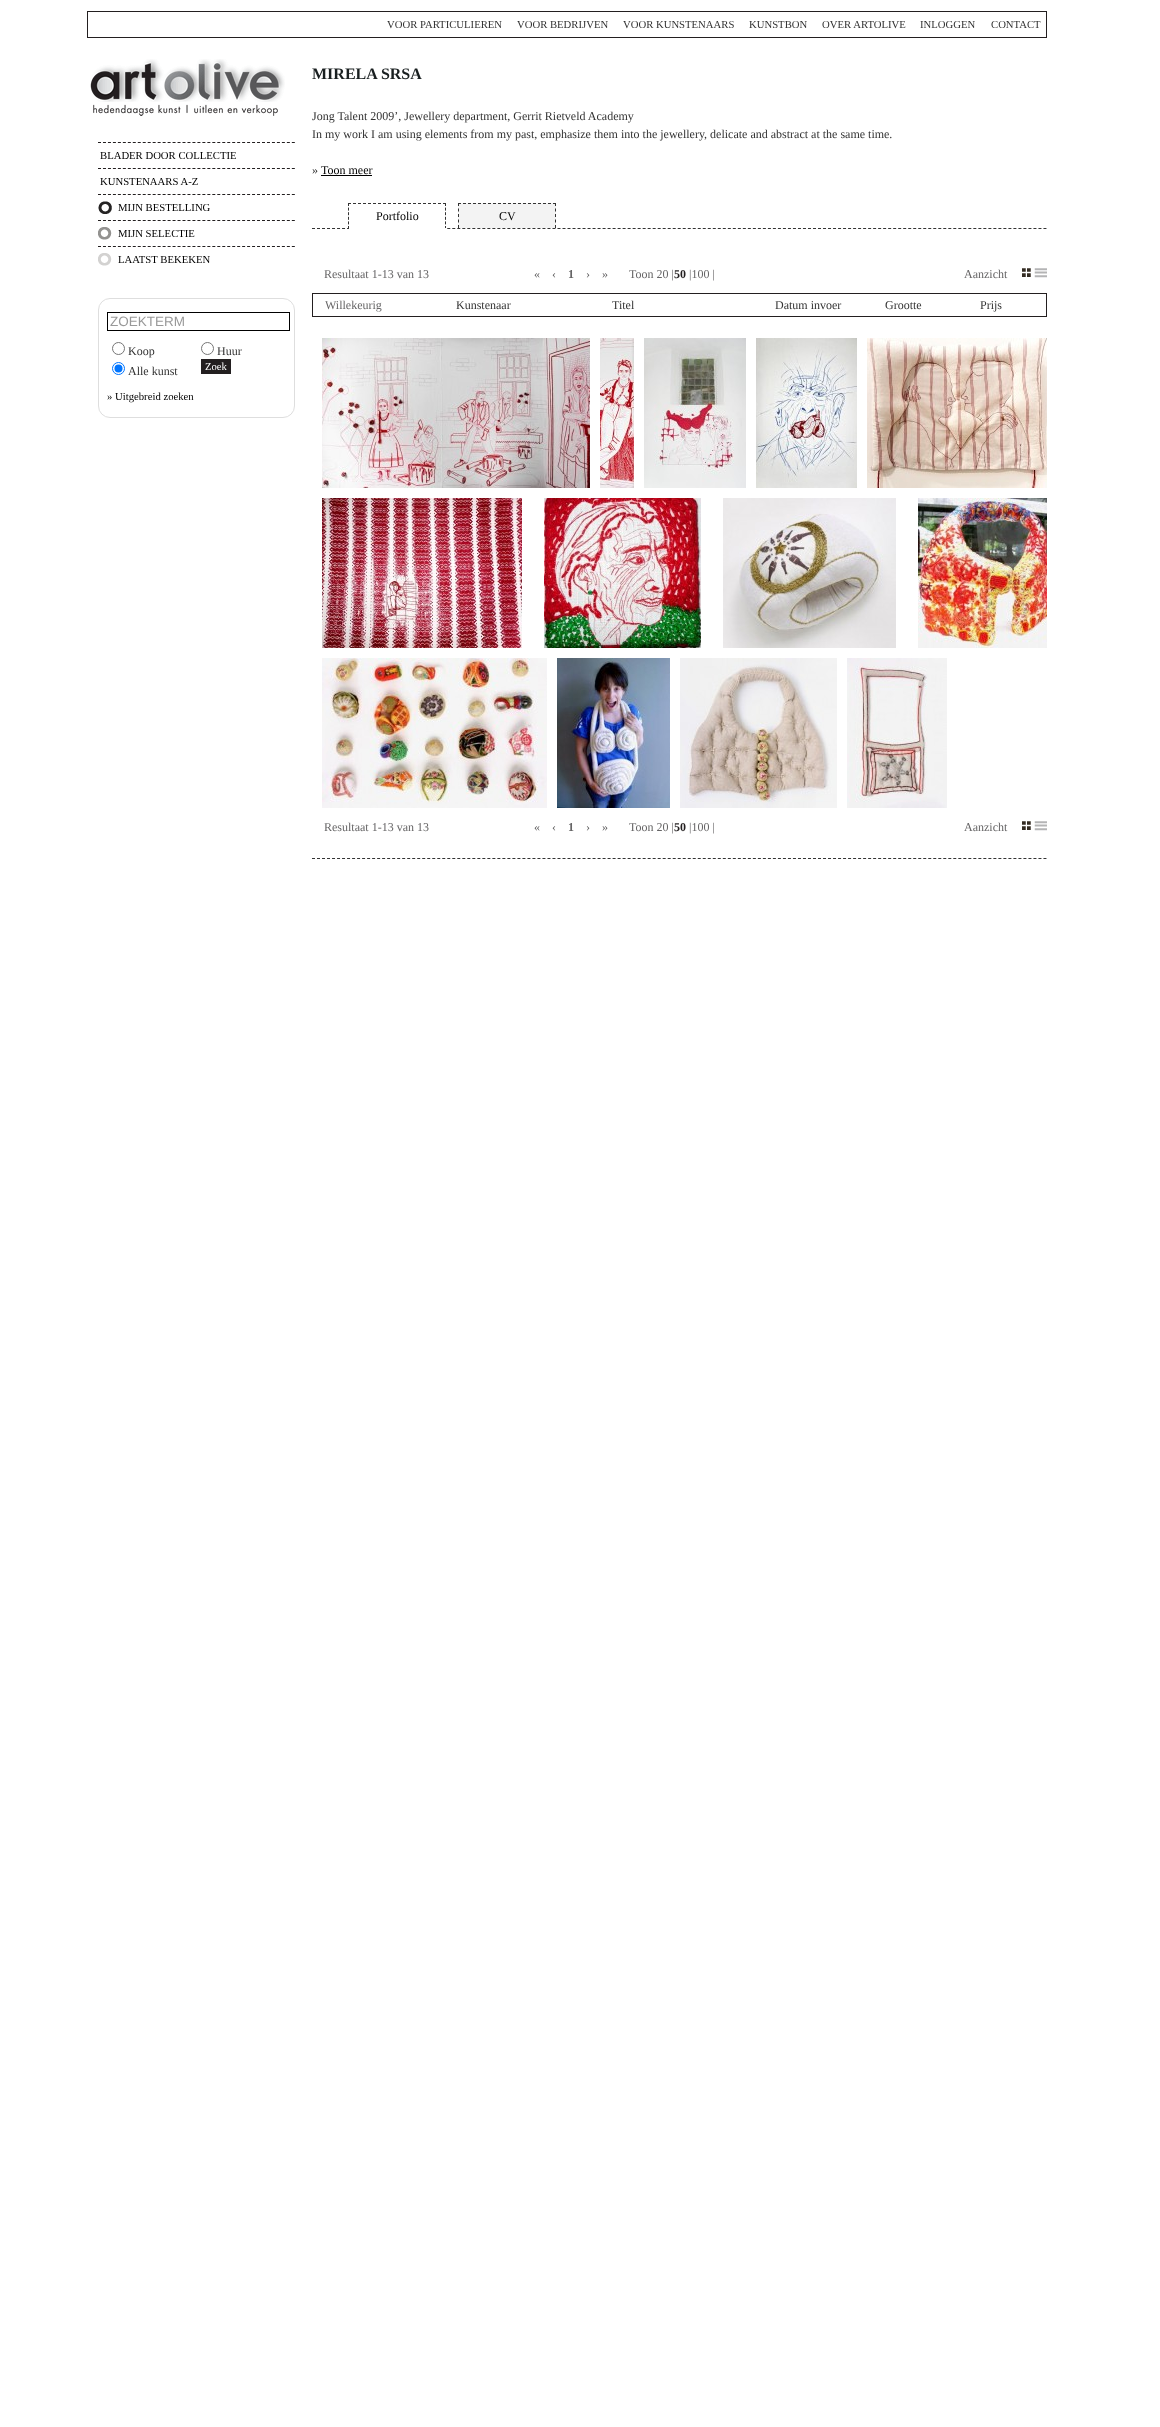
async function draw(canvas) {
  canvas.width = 1160
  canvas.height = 2427
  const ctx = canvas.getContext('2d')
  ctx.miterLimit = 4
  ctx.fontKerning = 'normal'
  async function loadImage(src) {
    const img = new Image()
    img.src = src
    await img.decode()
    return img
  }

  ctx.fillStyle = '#fff'
  ctx.fillRect(0, 0, 1160, 2427)
  ctx.strokeStyle = '#231f20'
  ctx.strokeRect(87.5, 11.5, 959, 26)
  ctx.font = '10.7px Liberation Serif'
  ctx.fillStyle = '#333'
  ctx.fillText('VOOR PARTICULIEREN', 387, 28)
  ctx.fillText('VOOR BEDRIJVEN', 517, 28)
  ctx.fillText('VOOR KUNSTENAARS', 623, 28)
  ctx.fillText('KUNSTBON', 749, 28)
  ctx.fillText('OVER ARTOLIVE', 822, 28)
  ctx.fillText('INLOGGEN', 920, 28)
  ctx.fillText('CONTACT', 991, 28)
  ctx.drawImage(await loadImage('image0.png'), 90, 59, 195, 57)
  ctx.beginPath()
  ctx.moveTo(98, 142.5)
  ctx.lineTo(295, 142.5)
  ctx.setLineDash([3, 1.97])
  ctx.stroke()
  ctx.fillStyle = '#000'
  ctx.fillText('BLADER DOOR COLLECTIE', 100, 159)
  ctx.beginPath()
  ctx.moveTo(98, 168.5)
  ctx.lineTo(295, 168.5)
  ctx.stroke()
  ctx.fillText('KUNSTENAARS A-Z', 100, 185)
  ctx.drawImage(await loadImage('image1.png'), 98, 201, 14, 13)
  ctx.beginPath()
  ctx.moveTo(98, 194.5)
  ctx.lineTo(295, 194.5)
  ctx.stroke()
  ctx.fillText('MIJN BESTELLING', 118, 211)
  ctx.drawImage(await loadImage('image2.png'), 98, 227, 14, 13)
  ctx.beginPath()
  ctx.moveTo(98, 220.5)
  ctx.lineTo(295, 220.5)
  ctx.stroke()
  ctx.fillText('MIJN SELECTIE', 118, 237)
  ctx.drawImage(await loadImage('image3.png'), 98, 253, 14, 13)
  ctx.beginPath()
  ctx.moveTo(98, 246.5)
  ctx.lineTo(295, 246.5)
  ctx.stroke()
  ctx.fillText('LAATST BEKEKEN', 118, 263)
  ctx.beginPath()
  ctx.roundRect(98.5, 298.5, 196, 119, 11.5)
  ctx.strokeStyle = '#dedede'
  ctx.setLineDash([])
  ctx.stroke()
  ctx.strokeStyle = '#000'
  ctx.strokeRect(107.5, 312.5, 182, 18)
  ctx.font = '13.5px Liberation Sans'
  ctx.fillStyle = '#999'
  ctx.fillText('ZOEKTERM', 110, 326)
  ctx.beginPath()
  ctx.arc(118.5, 348.5, 6, 0, 2 * Math.PI)
  ctx.strokeStyle = '#767676'
  ctx.stroke()
  ctx.font = '12px Liberation Serif'
  ctx.fillStyle = '#333'
  ctx.fillText('Koop', 128, 355)
  ctx.beginPath()
  ctx.arc(207.5, 348.5, 6, 0, 2 * Math.PI)
  ctx.stroke()
  ctx.fillText('Huur', 217, 355)
  ctx.beginPath()
  ctx.arc(118.5, 368.5, 6, 0, 2 * Math.PI)
  ctx.strokeStyle = '#0075ff'
  ctx.stroke()
  ctx.fillStyle = '#0075ff'
  ctx.beginPath()
  ctx.arc(118.5, 368.5, 4, 0, 2 * Math.PI)
  ctx.fill()
  ctx.fillStyle = '#333'
  ctx.fillText('Alle kunst', 128, 375)
  ctx.fillStyle = '#231f20'
  ctx.fillRect(201, 359, 30, 15)
  ctx.font = '10.7px Liberation Serif'
  ctx.fillStyle = '#fff'
  ctx.fillText('Zoek', 205, 370)
  ctx.fillStyle = '#000'
  ctx.fillText('» Uitgebreid zoeken', 107, 400)
  ctx.font = 'bold 16px Liberation Serif'
  ctx.fillStyle = '#191f20'
  ctx.fillText('MIRELA SRSA', 312, 79)
  ctx.font = '12px Liberation Serif'
  ctx.fillStyle = '#333'
  ctx.fillText('Jong Talent 2009’, Jewellery department, Gerrit Rietveld Academy', 312, 120)
  ctx.fillText('In my work I am using elements from my past, emphasize them into the jewellery, delicate and abstract at the same time.', 312, 138)
  ctx.fillText('»', 312, 174)
  ctx.fillStyle = '#000'
  ctx.fillText('Toon meer', 321, 174)
  ctx.fillRect(321, 175, 51, 1)
  ctx.beginPath()
  ctx.moveTo(312, 858.5)
  ctx.lineTo(1047, 858.5)
  ctx.strokeStyle = '#333'
  ctx.setLineDash([3, 2.01])
  ctx.stroke()
  ctx.beginPath()
  ctx.moveTo(312, 228.5)
  ctx.lineTo(1047, 228.5)
  ctx.stroke()
  ctx.beginPath()
  ctx.moveTo(348, 203.5)
  ctx.lineTo(446, 203.5)
  ctx.setLineDash([3, 2])
  ctx.stroke()
  ctx.beginPath()
  ctx.moveTo(445.5, 203)
  ctx.lineTo(445.5, 229)
  ctx.setLineDash([3, 1.6])
  ctx.stroke()
  ctx.fillStyle = '#fff'
  ctx.fillRect(348, 228, 98, 1)
  ctx.beginPath()
  ctx.moveTo(348.5, 203)
  ctx.lineTo(348.5, 229)
  ctx.stroke()
  ctx.fillStyle = '#000'
  ctx.fillText('Portfolio', 376, 220)
  ctx.fillStyle = '#f3f3f3'
  ctx.fillRect(458, 203, 98, 25)
  ctx.beginPath()
  ctx.moveTo(458, 203.5)
  ctx.lineTo(556, 203.5)
  ctx.setLineDash([3, 2])
  ctx.stroke()
  ctx.beginPath()
  ctx.moveTo(555.5, 203)
  ctx.lineTo(555.5, 228)
  ctx.setLineDash([3, 2.5])
  ctx.stroke()
  ctx.beginPath()
  ctx.moveTo(458.5, 203)
  ctx.lineTo(458.5, 228)
  ctx.stroke()
  ctx.fillStyle = '#000'
  ctx.fillText('CV', 499, 220)
  ctx.fillStyle = '#666566'
  ctx.fillText('Resultaat 1-13 van 13', 324, 278)
  ctx.fillText('«', 534, 278)
  ctx.fillText('‹', 552, 278)
  ctx.font = 'bold 12px Liberation Serif'
  ctx.fillText('1', 568, 278)
  ctx.font = '12px Liberation Serif'
  ctx.fillText('›', 586, 278)
  ctx.fillText('»', 602, 278)
  ctx.fillText('Toon 20 |', 629, 278)
  ctx.font = 'bold 12px Liberation Serif'
  ctx.fillStyle = '#231f20'
  ctx.fillText('50', 674, 278)
  ctx.font = '12px Liberation Serif'
  ctx.fillStyle = '#666566'
  ctx.fillText('|100 |', 689, 278)
  ctx.fillText('Aanzicht', 964, 278)
  ctx.drawImage(await loadImage('image4.png'), 1022, 268, 9, 9)
  ctx.drawImage(await loadImage('image5.png'), 1034, 268, 13, 10)
  ctx.strokeStyle = '#231f20'
  ctx.setLineDash([])
  ctx.strokeRect(312.5, 293.5, 734, 23)
  ctx.fillText('Willekeurig', 325, 309)
  ctx.fillStyle = '#333'
  ctx.fillText('Kunstenaar', 456, 309)
  ctx.fillText('Titel', 612, 309)
  ctx.fillText('Datum invoer', 775, 309)
  ctx.fillText('Grootte', 885, 309)
  ctx.fillText('Prijs', 980, 309)
  ctx.drawImage(await loadImage('image6.png'), 322, 338, 268, 150)
  ctx.drawImage(await loadImage('image7.png'), 600, 338, 34, 150)
  ctx.drawImage(await loadImage('image8.png'), 644, 338, 102, 150)
  ctx.drawImage(await loadImage('image9.png'), 756, 338, 101, 150)
  ctx.drawImage(await loadImage('image10.png'), 867, 338, 180, 150)
  ctx.drawImage(await loadImage('image11.png'), 322, 498, 200, 150)
  ctx.drawImage(await loadImage('image12.png'), 544, 498, 157, 150)
  ctx.drawImage(await loadImage('image13.png'), 723, 498, 173, 150)
  ctx.drawImage(await loadImage('image14.png'), 918, 498, 129, 150)
  ctx.drawImage(await loadImage('image15.png'), 322, 658, 225, 150)
  ctx.drawImage(await loadImage('image16.png'), 557, 658, 113, 150)
  ctx.drawImage(await loadImage('image17.png'), 680, 658, 157, 150)
  ctx.drawImage(await loadImage('image18.png'), 847, 658, 100, 150)
  ctx.fillStyle = '#666566'
  ctx.fillText('Resultaat 1-13 van 13', 324, 831)
  ctx.fillText('«', 534, 831)
  ctx.fillText('‹', 552, 831)
  ctx.font = 'bold 12px Liberation Serif'
  ctx.fillText('1', 568, 831)
  ctx.font = '12px Liberation Serif'
  ctx.fillText('›', 586, 831)
  ctx.fillText('»', 602, 831)
  ctx.fillText('Toon 20 |', 629, 831)
  ctx.font = 'bold 12px Liberation Serif'
  ctx.fillStyle = '#231f20'
  ctx.fillText('50', 674, 831)
  ctx.font = '12px Liberation Serif'
  ctx.fillStyle = '#666566'
  ctx.fillText('|100 |', 689, 831)
  ctx.fillText('Aanzicht', 964, 831)
  ctx.drawImage(await loadImage('image4.png'), 1022, 821, 9, 9)
  ctx.drawImage(await loadImage('image5.png'), 1034, 821, 13, 10)
}

draw(document.querySelector('canvas'))
